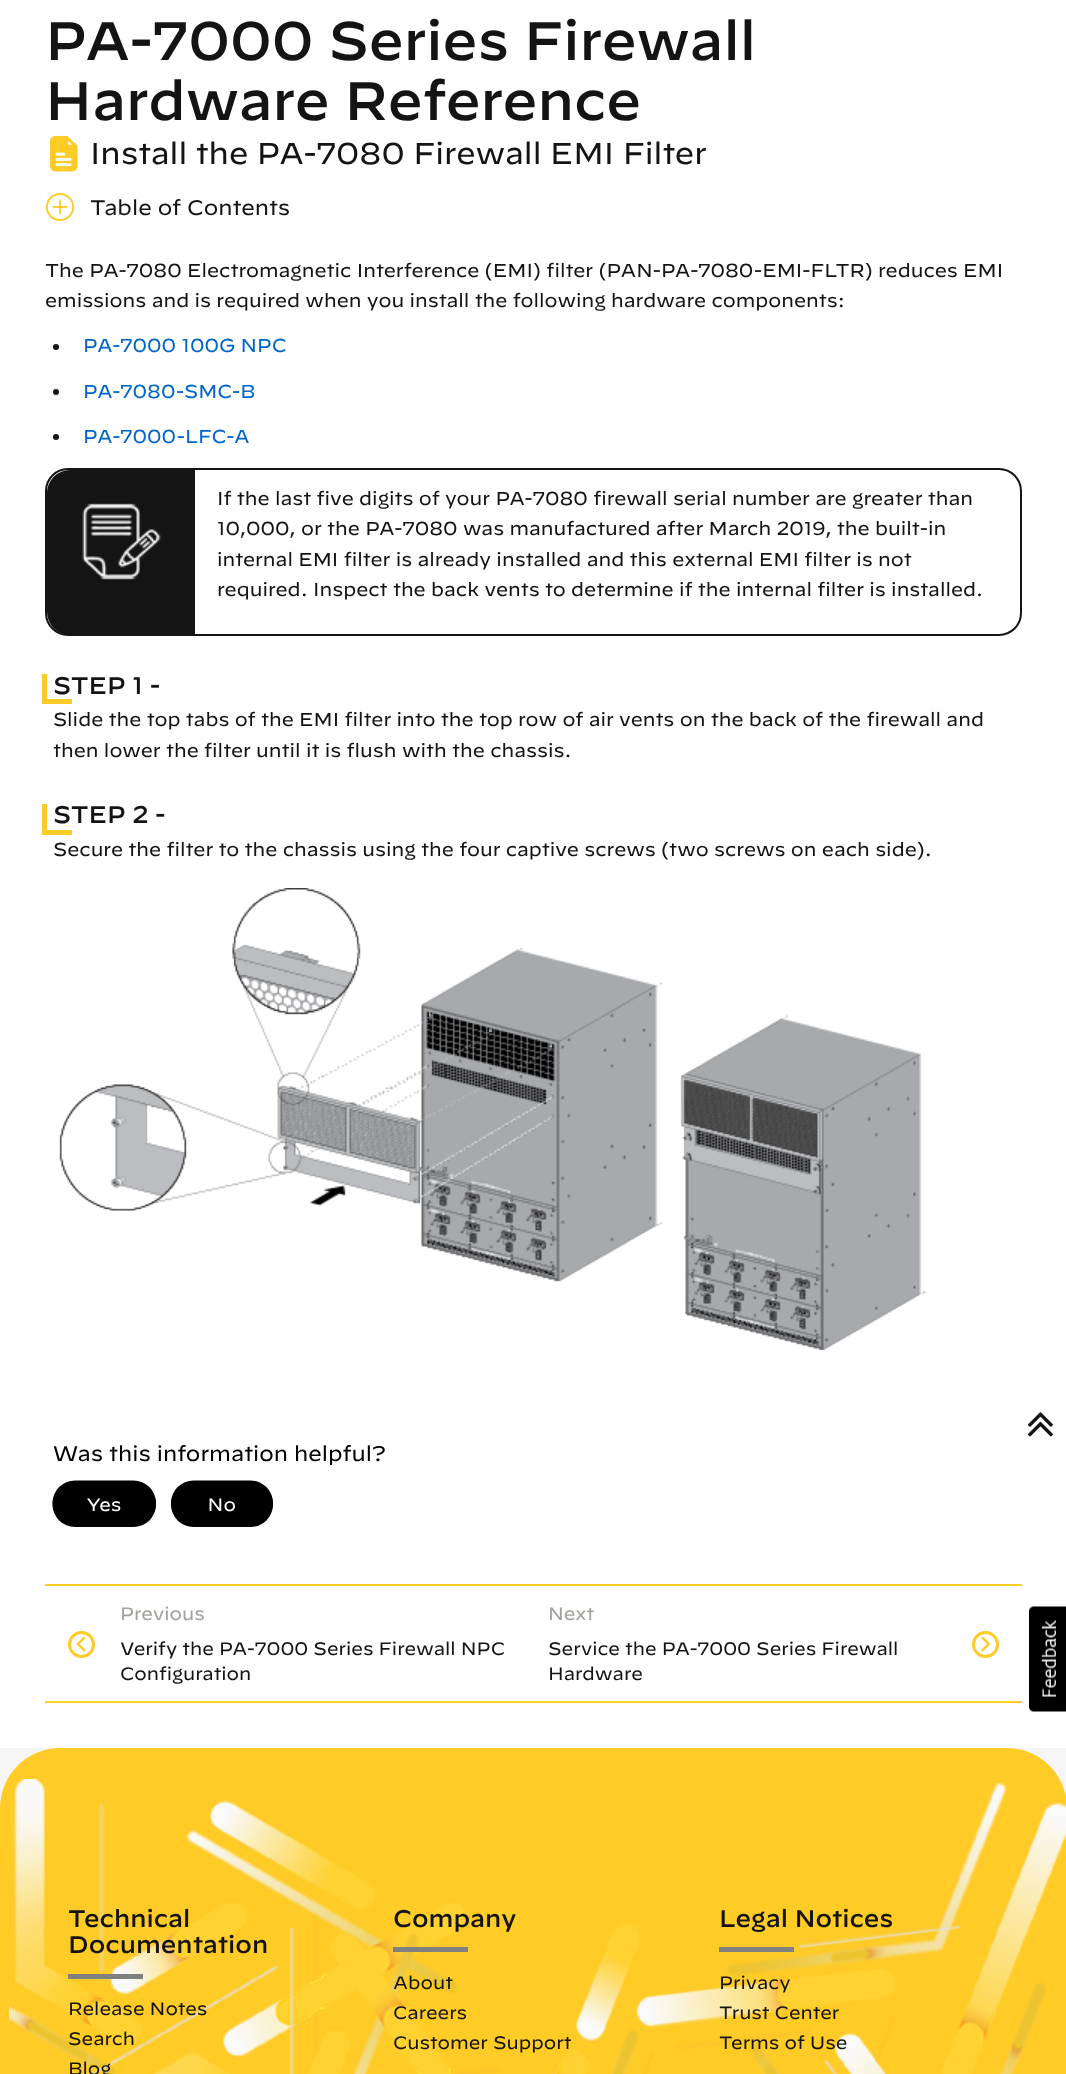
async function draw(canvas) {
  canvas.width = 1066
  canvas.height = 2074
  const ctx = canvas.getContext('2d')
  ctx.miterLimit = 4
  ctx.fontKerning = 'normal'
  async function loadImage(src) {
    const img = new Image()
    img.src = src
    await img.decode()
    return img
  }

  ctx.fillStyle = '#f5f5f5'
  ctx.fillRect(0, 0, 1066, 2074)
  ctx.fillStyle = '#fff'
  ctx.fillRect(0, 0, 1066, 1748)
  ctx.font = '300 54px "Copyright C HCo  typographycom"'
  ctx.fillStyle = '#141414'
  ctx.fillText('PA-7000 Series Firewall', 45, 60)
  ctx.fillText('Hardware Reference', 45, 120)
  ctx.drawImage(await loadImage('image0.png'), 49, 135, 29, 37)
  ctx.font = '30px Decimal'
  ctx.fillText('Install the PA-7080 Firewall EMI Filter', 90, 164)
  ctx.drawImage(await loadImage('image1.png'), 46, 193, 28, 28)
  ctx.font = '21px Decimal'
  ctx.fillText('Table of Contents', 90, 215)
  ctx.font = '18.75px Decimal'
  ctx.fillText('The PA-7080 Electromagnetic Interference (EMI) filter (PAN-PA-7080-EMI-FLTR) reduces EMI', 45, 277)
  ctx.fillText('emissions and is required when you install the following hardware components:', 45, 307)
  ctx.beginPath()
  ctx.arc(56, 347, 3, 0, 2 * Math.PI)
  ctx.fill()
  ctx.fillStyle = '#06c'
  ctx.fillText('PA-7000 100G NPC', 83, 352)
  ctx.fillStyle = '#141414'
  ctx.beginPath()
  ctx.arc(56, 392, 3, 0, 2 * Math.PI)
  ctx.fill()
  ctx.fillStyle = '#06c'
  ctx.fillText('PA-7080-SMC-B', 83, 398)
  ctx.fillStyle = '#141414'
  ctx.beginPath()
  ctx.arc(56, 437, 3, 0, 2 * Math.PI)
  ctx.fill()
  ctx.fillStyle = '#06c'
  ctx.fillText('PA-7000-LFC-A', 83, 443)
  ctx.beginPath()
  ctx.roundRect(46, 469, 975, 166, 22)
  ctx.strokeStyle = '#141414'
  ctx.lineWidth = 2
  ctx.stroke()
  ctx.fillStyle = '#141414'
  ctx.beginPath()
  ctx.roundRect(47, 470, 148, 165, [23, 0, 0, 23])
  ctx.fill()
  ctx.drawImage(await loadImage('image2.png'), 82, 503, 79, 77)
  ctx.fillText('If the last five digits of your PA-7080 firewall serial number are greater than', 217, 505)
  ctx.fillText('10,000, or the PA-7080 was manufactured after March 2019, the built-in', 217, 535)
  ctx.fillText('internal EMI filter is already installed and this external EMI filter is not', 217, 566)
  ctx.fillText('required. Inspect the back vents to determine if the internal filter is installed.', 217, 596)
  ctx.fillStyle = '#ffcb26'
  ctx.fillRect(42, 674, 5, 25)
  ctx.font = '300 24px "Copyright C HCo  typographycom"'
  ctx.fillStyle = '#141414'
  ctx.fillText('STEP 1 -', 53, 694)
  ctx.fillStyle = '#ffcb26'
  ctx.fillRect(42, 699, 30, 5)
  ctx.font = '18.75px Decimal'
  ctx.fillStyle = '#141414'
  ctx.fillText('Slide the top tabs of the EMI filter into the top row of air vents on the back of the firewall and', 53, 726)
  ctx.fillText('then lower the filter until it is flush with the chassis.', 53, 757)
  ctx.fillStyle = '#ffcb26'
  ctx.fillRect(42, 804, 5, 26)
  ctx.font = '300 24px "Copyright C HCo  typographycom"'
  ctx.fillStyle = '#141414'
  ctx.fillText('STEP 2 -', 53, 823)
  ctx.fillStyle = '#ffcb26'
  ctx.fillRect(42, 830, 30, 5)
  ctx.font = '18.75px Decimal'
  ctx.fillStyle = '#141414'
  ctx.fillText('Secure the filter to the chassis using the four captive screws (two screws on each side).', 53, 856)
  ctx.drawImage(await loadImage('image3.png'), 59, 888, 868, 462)
  ctx.drawImage(await loadImage('image4.png'), 52, 1445, 333, 82)
  ctx.fillStyle = '#ffcb26'
  ctx.fillRect(45, 1584, 977, 2)
  ctx.beginPath()
  ctx.arc(81.5, 1644.5, 12, 0, 2 * Math.PI)
  ctx.strokeStyle = '#ffcb26'
  ctx.lineWidth = 3
  ctx.stroke()
  ctx.drawImage(await loadImage('image5.png'), 76, 1637, 10, 15)
  ctx.font = '18px Decimal'
  ctx.fillStyle = '#a5a09d'
  ctx.fillText('Previous', 120, 1620)
  ctx.fillStyle = '#141414'
  ctx.fillText('Verify the PA-7000 Series Firewall NPC', 120, 1655)
  ctx.fillText('Configuration', 120, 1680)
  ctx.fillStyle = '#a5a09d'
  ctx.fillText('Next', 548, 1620)
  ctx.fillStyle = '#141414'
  ctx.fillText('Service the PA-7000 Series Firewall', 548, 1655)
  ctx.fillText('Hardware', 548, 1680)
  ctx.beginPath()
  ctx.arc(985.5, 1644.5, 12, 0, 2 * Math.PI)
  ctx.stroke()
  ctx.drawImage(await loadImage('image6.png'), 981, 1637, 9, 15)
  ctx.fillStyle = '#ffcb26'
  ctx.fillRect(45, 1701, 977, 2)
  ctx.beginPath()
  ctx.moveTo(60, 1748)
  ctx.lineTo(1007, 1748)
  ctx.bezierCurveTo(1040, 1748, 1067, 1775, 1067, 1808)
  ctx.lineTo(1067, 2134)
  ctx.lineTo(0, 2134)
  ctx.lineTo(0, 1808)
  ctx.bezierCurveTo(0, 1775, 27, 1748, 60, 1748)
  ctx.closePath()
  ctx.fill()
  ctx.drawImage(await loadImage('image7.png'), 9, 1779, 458, 295)
  ctx.drawImage(await loadImage('image8.png'), 308, 1782, 758, 292)
  ctx.font = '300 24px "Copyright C HCo  typographycom"'
  ctx.fillStyle = '#141414'
  ctx.fillText('Technical', 68, 1927)
  ctx.fillText('Documentation', 68, 1953)
  ctx.fillStyle = '#808080'
  ctx.fillRect(68, 1974, 75, 5)
  ctx.font = '18px Decimal'
  ctx.fillStyle = '#141414'
  ctx.fillText('Release Notes', 68, 2015)
  ctx.fillText('Search', 68, 2045)
  ctx.fillText('Blog', 68, 2075)
  ctx.font = '300 24px "Copyright C HCo  typographycom"'
  ctx.fillText('Company', 393, 1927)
  ctx.fillStyle = '#808080'
  ctx.fillRect(393, 1947, 75, 5)
  ctx.font = '18px Decimal'
  ctx.fillStyle = '#141414'
  ctx.fillText('About', 393, 1989)
  ctx.fillText('Careers', 393, 2019)
  ctx.fillText('Customer Support', 393, 2049)
  ctx.font = '300 24px "Copyright C HCo  typographycom"'
  ctx.fillText('Legal Notices', 719, 1927)
  ctx.fillStyle = '#808080'
  ctx.fillRect(719, 1947, 75, 5)
  ctx.font = '18px Decimal'
  ctx.fillStyle = '#141414'
  ctx.fillText('Privacy', 719, 1989)
  ctx.fillText('Trust Center', 719, 2019)
  ctx.fillText('Terms of Use', 719, 2049)
  ctx.drawImage(await loadImage('image9.png'), 1028, 1412, 25, 25)
  ctx.drawImage(await loadImage('image10.png'), 1029, 1606, 37, 106)
}

draw(document.querySelector('canvas'))
